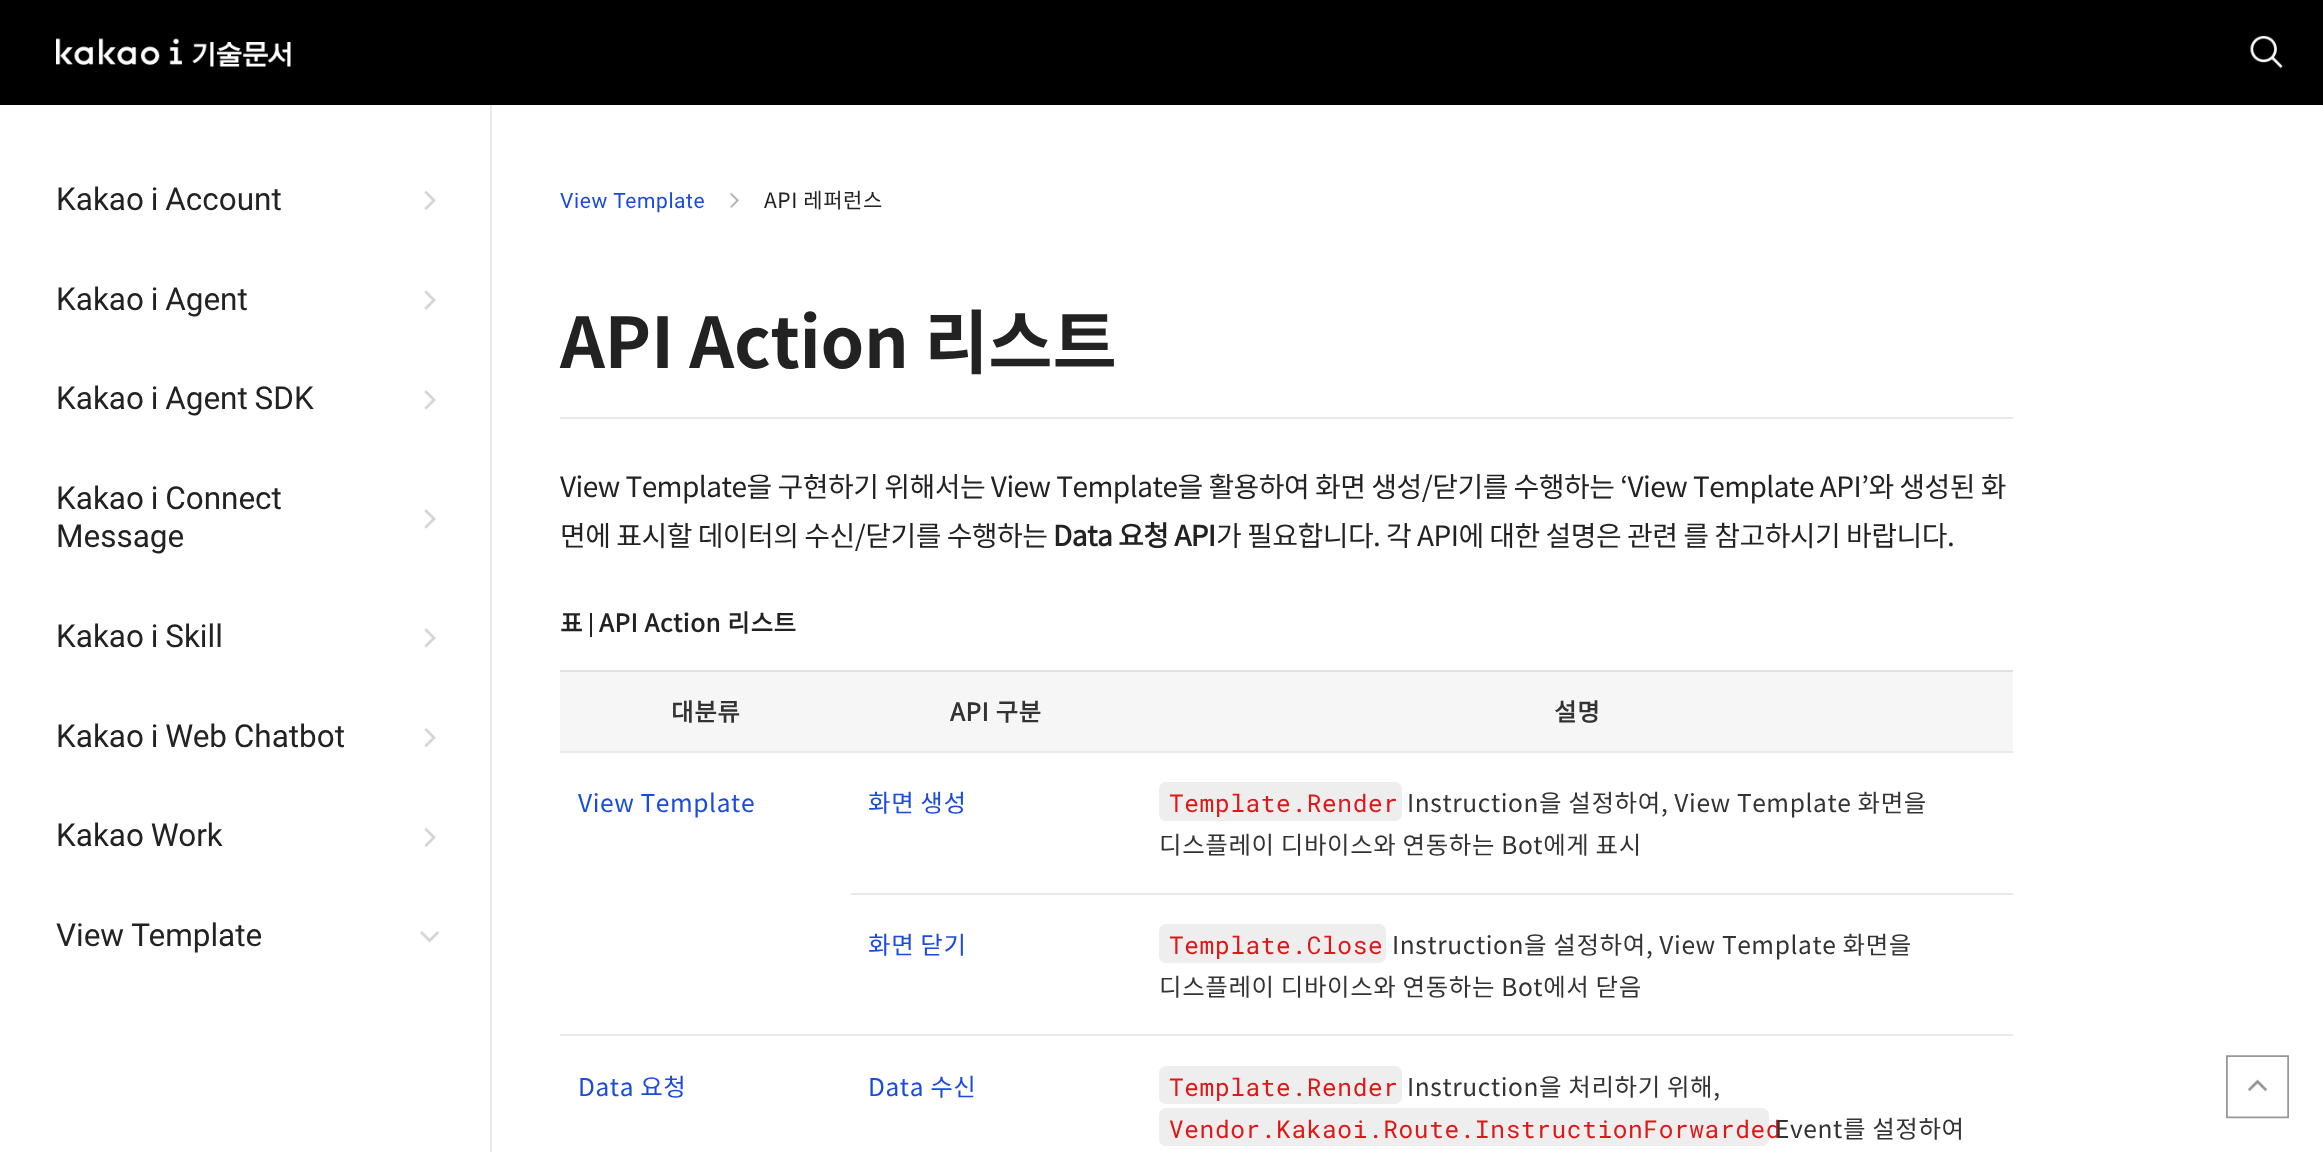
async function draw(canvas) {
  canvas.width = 2323
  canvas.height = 1152
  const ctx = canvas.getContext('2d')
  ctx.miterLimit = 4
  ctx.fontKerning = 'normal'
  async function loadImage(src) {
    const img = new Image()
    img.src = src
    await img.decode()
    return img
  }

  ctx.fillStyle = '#fff'
  ctx.fillRect(0, 0, 2323, 1152)
  ctx.fillStyle = '#000'
  ctx.fillRect(0, 0, 2323, 105)
  ctx.drawImage(await loadImage('image0.png'), 56, 38, 235, 29)
  ctx.drawImage(await loadImage('image1.png'), 2250, 35, 33, 34)
  ctx.fillStyle = '#e9e9e9'
  ctx.fillRect(490, 105, 2, 1047)
  ctx.wordSpacing = '-1px'
  ctx.font = '31.5px Roboto'
  ctx.fillStyle = '#222'
  ctx.fillText('Kakao i Account', 56, 210)
  ctx.drawImage(await loadImage('image2.png'), 424, 190, 12, 20)
  ctx.fillText('Kakao i Agent', 56, 310)
  ctx.drawImage(await loadImage('image3.png'), 424, 290, 12, 20)
  ctx.fillText('Kakao i Agent SDK', 56, 409)
  ctx.drawImage(await loadImage('image4.png'), 424, 390, 12, 20)
  ctx.fillText('Kakao i Connect', 56, 509)
  ctx.wordSpacing = '0px'
  ctx.fillText('Message', 56, 547)
  ctx.drawImage(await loadImage('image4.png'), 424, 509, 12, 20)
  ctx.wordSpacing = '-1px'
  ctx.fillText('Kakao i Skill', 56, 647)
  ctx.drawImage(await loadImage('image5.png'), 424, 628, 12, 20)
  ctx.fillText('Kakao i Web Chatbot', 56, 747)
  ctx.drawImage(await loadImage('image6.png'), 424, 728, 12, 20)
  ctx.fillText('Kakao Work', 56, 846)
  ctx.drawImage(await loadImage('image2.png'), 424, 827, 12, 20)
  ctx.wordSpacing = '0px'
  ctx.fillText('View Template', 56, 946)
  ctx.drawImage(await loadImage('image7.png'), 420, 931, 20, 12)
  ctx.letterSpacing = '0.6px'
  ctx.font = '21px Roboto'
  ctx.fillStyle = '#194bdc'
  ctx.fillText('View Template', 560, 208)
  ctx.drawImage(await loadImage('image8.png'), 729, 192, 10, 17)
  ctx.font = '21px Noto Sans KR'
  ctx.fillStyle = '#222'
  ctx.fillText('API 레퍼런스', 764, 208)
  ctx.fillStyle = '#e9e9e9'
  ctx.fillRect(560, 417, 1453, 2)
  ctx.letterSpacing = '-0.3px'
  ctx.font = 'bold 70px Noto Sans KR'
  ctx.fillStyle = '#222'
  ctx.fillText('API Action 리스트', 560, 368)
  ctx.letterSpacing = '-0.53px'
  ctx.font = '28px Noto Sans KR'
  ctx.fillText('View Template을 구현하기 위해서는 View Template을 활용하여 화면 생성/닫기를 수행하는 ‘View Template API’와 생성된 화', 560, 497)
  ctx.fillText('면에 표시할 데이터의 수신/닫기를 수행하는', 560, 546)
  ctx.font = 'bold 28px "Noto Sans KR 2"'
  ctx.fillText('Data 요청 API', 1053, 546)
  ctx.font = '28px Noto Sans KR'
  ctx.fillText('가 필요합니다. 각 API에 대한 설명은 관련 를 참고하시기 바랍니다.', 1216, 546)
  ctx.letterSpacing = '0.6px'
  ctx.font = 'bold 24.5px "Noto Sans KR 2"'
  ctx.fillText('표', 560, 632)
  ctx.fillRect(590, 613, 2, 24)
  ctx.fillText('API Action 리스트', 599, 632)
  ctx.fillStyle = '#f6f6f6'
  ctx.fillRect(560, 672, 1453, 79)
  ctx.fillStyle = '#e1e1e1'
  ctx.fillRect(560, 670, 1453, 2)
  ctx.fillStyle = '#333'
  ctx.fillText('대분류', 671, 721)
  ctx.fillText('API 구분', 950, 721)
  ctx.fillText('설명', 1554, 721)
  ctx.fillStyle = '#e9e9e9'
  ctx.fillRect(560, 751, 1453, 2)
  ctx.font = '24.5px Noto Sans KR'
  ctx.fillStyle = '#194bdc'
  ctx.fillText('View Template', 578, 812)
  ctx.fillText('화면 생성', 868, 812)
  ctx.fillStyle = '#eee'
  ctx.beginPath()
  ctx.roundRect(1159, 782, 243, 39, 7)
  ctx.fill()
  ctx.font = '24.5px Roboto Mono'
  ctx.fillStyle = '#dc1919'
  ctx.fillText('Template.Render', 1169, 812)
  ctx.font = '24.5px Noto Sans KR'
  ctx.fillStyle = '#333'
  ctx.fillText('Instruction을 설정하여, View Template 화면을', 1407, 812)
  ctx.fillText('디스플레이 디바이스와 연동하는 Bot에게 표시', 1159, 854)
  ctx.fillStyle = '#e9e9e9'
  ctx.fillRect(851, 893, 1162, 2)
  ctx.fillStyle = '#194bdc'
  ctx.fillText('화면 닫기', 868, 954)
  ctx.fillStyle = '#eee'
  ctx.beginPath()
  ctx.roundRect(1159, 924, 227, 39, 7)
  ctx.fill()
  ctx.font = '24.5px Roboto Mono'
  ctx.fillStyle = '#dc1919'
  ctx.fillText('Template.Close', 1169, 954)
  ctx.font = '24.5px Noto Sans KR'
  ctx.fillStyle = '#333'
  ctx.fillText('Instruction을 설정하여, View Template 화면을', 1392, 954)
  ctx.fillText('디스플레이 디바이스와 연동하는 Bot에서 닫음', 1159, 996)
  ctx.fillStyle = '#e9e9e9'
  ctx.fillRect(560, 1034, 1453, 2)
  ctx.fillStyle = '#194bdc'
  ctx.fillText('Data 요청', 578, 1096)
  ctx.fillText('Data 수신', 868, 1096)
  ctx.fillStyle = '#eee'
  ctx.beginPath()
  ctx.roundRect(1159, 1066, 243, 38, 7)
  ctx.fill()
  ctx.font = '24.5px Roboto Mono'
  ctx.fillStyle = '#dc1919'
  ctx.fillText('Template.Render', 1169, 1096)
  ctx.font = '24.5px Noto Sans KR'
  ctx.fillStyle = '#333'
  ctx.fillText('Instruction을 처리하기 위해,', 1407, 1096)
  ctx.fillStyle = '#eee'
  ctx.beginPath()
  ctx.roundRect(1159, 1108, 610, 38, 7)
  ctx.fill()
  ctx.font = '24.5px Roboto Mono'
  ctx.fillStyle = '#dc1919'
  ctx.fillText('Vendor.Kakaoi.Route.InstructionForwarded', 1169, 1138)
  ctx.font = '24.5px Noto Sans KR'
  ctx.fillStyle = '#333'
  ctx.fillText('Event를 설정하여', 1775, 1138)
  ctx.drawImage(await loadImage('image9.png'), 2226, 1055, 63, 64)
}

draw(document.querySelector('canvas'))
